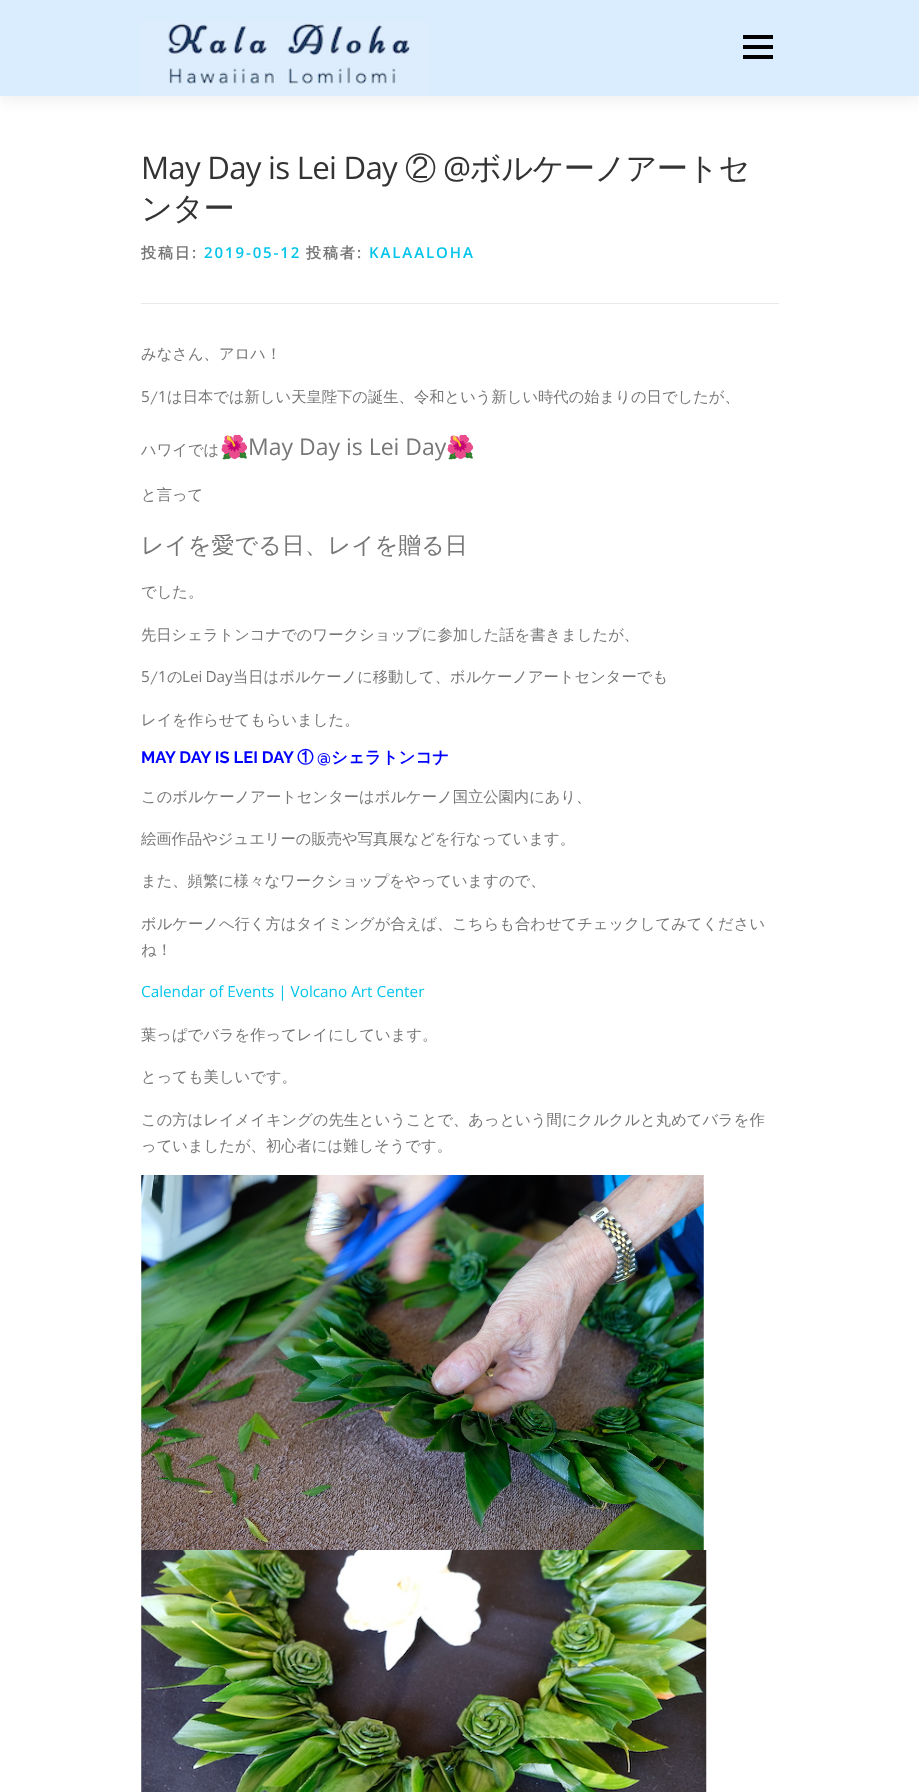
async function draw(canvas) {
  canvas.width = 919
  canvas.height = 1792
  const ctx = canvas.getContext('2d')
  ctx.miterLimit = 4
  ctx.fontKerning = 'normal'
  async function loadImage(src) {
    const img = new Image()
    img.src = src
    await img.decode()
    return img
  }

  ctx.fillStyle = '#fff'
  ctx.fillRect(0, 0, 919, 1792)
  ctx.fillStyle = '#3232320f'
  ctx.filter = 'blur(6px)'
  ctx.beginPath()
  ctx.rect(0, 6, 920, 97)
  ctx.fill()
  ctx.filter = 'none'
  ctx.fillStyle = '#daedff'
  ctx.fillRect(0, 0, 919, 96)
  ctx.drawImage(await loadImage('image0.png'), 141, 22, 288, 75)
  ctx.fillStyle = '#000'
  ctx.fillRect(743, 45, 30, 4)
  ctx.fillRect(743, 35, 30, 4)
  ctx.fillRect(743, 55, 30, 4)
  ctx.letterSpacing = '-0.75px'
  ctx.font = '31.25px Open Sans'
  ctx.fillStyle = '#333'
  ctx.fillText('May Day is Lei Day', 141, 179)
  ctx.font = '500 31.25px WenQuanYi Zen Hei'
  ctx.fillText('②', 405, 179)
  ctx.font = '31.25px Open Sans'
  ctx.fillText('@', 443, 179)
  ctx.font = '500 31.25px WenQuanYi Zen Hei'
  ctx.fillText('ボルケーノアートセ', 470, 179)
  ctx.fillText('ンター', 141, 219)
  ctx.fillStyle = '#e9e9e9'
  ctx.fillRect(141, 303, 638, 1)
  ctx.letterSpacing = '1.9px'
  ctx.font = 'bold 15px WenQuanYi Zen Hei'
  ctx.fillStyle = '#777'
  ctx.fillText('投稿日', 141, 258)
  ctx.font = '600 15px Open Sans'
  ctx.fillText(':', 192, 258)
  ctx.fillStyle = '#03c4eb'
  ctx.fillText('2019-05-12', 204, 258)
  ctx.font = 'bold 15px WenQuanYi Zen Hei'
  ctx.fillStyle = '#777'
  ctx.fillText('投稿者', 306, 258)
  ctx.font = '600 15px Open Sans'
  ctx.fillText(':', 357, 258)
  ctx.fillStyle = '#03c4eb'
  ctx.fillText('KALAALOHA', 369, 258)
  ctx.letterSpacing = '0px'
  ctx.font = '500 15.3px WenQuanYi Zen Hei'
  ctx.fillStyle = '#777'
  ctx.fillText('みなさん、アロハ！', 141, 359)
  ctx.font = '15.3px Open Sans'
  ctx.fillText('5', 141, 402)
  ctx.font = '500 15.3px WenQuanYi Zen Hei'
  ctx.fillText('/', 150, 402)
  ctx.font = '15.3px Open Sans'
  ctx.fillText('1', 158, 402)
  ctx.font = '500 15.3px WenQuanYi Zen Hei'
  ctx.fillText('は日本では新しい天皇陛下の誕生、令和という新しい時代の始まりの日でしたが、', 167, 402)
  ctx.fillText('ハワイでは', 141, 455)
  ctx.font = '23px Noto Color Emoji'
  ctx.fillText('🌺', 220, 455)
  ctx.font = '23px Open Sans'
  ctx.fillText('May Day is Lei Day', 248, 455)
  ctx.font = '23px Noto Color Emoji'
  ctx.fillText('🌺', 446, 455)
  ctx.font = '500 15.3px WenQuanYi Zen Hei'
  ctx.fillText('と言って', 141, 500)
  ctx.font = '500 23px WenQuanYi Zen Hei'
  ctx.fillText('レイを愛でる日、レイを贈る日', 141, 553)
  ctx.font = '500 15.3px WenQuanYi Zen Hei'
  ctx.fillText('でした。', 141, 597)
  ctx.fillText('先日シェラトンコナでのワークショップに参加した話を書きましたが、', 141, 640)
  ctx.font = '15.3px Open Sans'
  ctx.fillText('5', 141, 682)
  ctx.font = '500 15.3px WenQuanYi Zen Hei'
  ctx.fillText('/', 150, 682)
  ctx.font = '15.3px Open Sans'
  ctx.fillText('1', 158, 682)
  ctx.font = '500 15.3px WenQuanYi Zen Hei'
  ctx.fillText('の', 167, 682)
  ctx.wordSpacing = '-1px'
  ctx.font = '15.3px Open Sans'
  ctx.fillText('Lei Day', 182, 682)
  ctx.wordSpacing = '0px'
  ctx.font = '500 15.3px WenQuanYi Zen Hei'
  ctx.fillText('当日はボルケーノに移動して、ボルケーノアートセンターでも', 233, 682)
  ctx.fillText('レイを作らせてもらいました。', 141, 725)
  ctx.font = 'bold 16.5px Raleway'
  ctx.fillStyle = '#00f'
  ctx.fillText('MAY DAY IS LEI DAY', 141, 763)
  ctx.font = 'bold 16.5px WenQuanYi Zen Hei'
  ctx.fillText('①', 297, 763)
  ctx.font = 'bold 16.5px Raleway'
  ctx.fillText('@', 317, 763)
  ctx.font = 'bold 16.5px WenQuanYi Zen Hei'
  ctx.fillText('シェラトンコナ', 331, 763)
  ctx.font = '500 15.3px WenQuanYi Zen Hei'
  ctx.fillStyle = '#777'
  ctx.fillText('このボルケーノアートセンターはボルケーノ国立公園内にあり、', 141, 802)
  ctx.fillText('絵画作品やジュエリーの販売や写真展などを行なっています。', 141, 844)
  ctx.fillText('また、頻繁に様々なワークショップをやっていますので、', 141, 886)
  ctx.fillText('ボルケーノへ行く方はタイミングが合えば、こちらも合わせてチェックしてみてください', 141, 929)
  ctx.fillText('ね！', 141, 955)
  ctx.font = '15.3px Open Sans'
  ctx.fillStyle = '#03c4eb'
  ctx.fillText('Calendar of Events | Volcano Art Center', 141, 997)
  ctx.font = '500 15.3px WenQuanYi Zen Hei'
  ctx.fillStyle = '#777'
  ctx.fillText('葉っぱでバラを作ってレイにしています。', 141, 1040)
  ctx.fillText('とっても美しいです。', 141, 1082)
  ctx.fillText('この方はレイメイキングの先生ということで、あっという間にクルクルと丸めてバラを作', 141, 1125)
  ctx.fillText('っていましたが、初心者には難しそうです。', 141, 1151)
  ctx.drawImage(await loadImage('image1.png'), 141, 1175, 563, 375)
  ctx.drawImage(await loadImage('image2.png'), 141, 1550, 566, 242)
}

draw(document.querySelector('canvas'))
